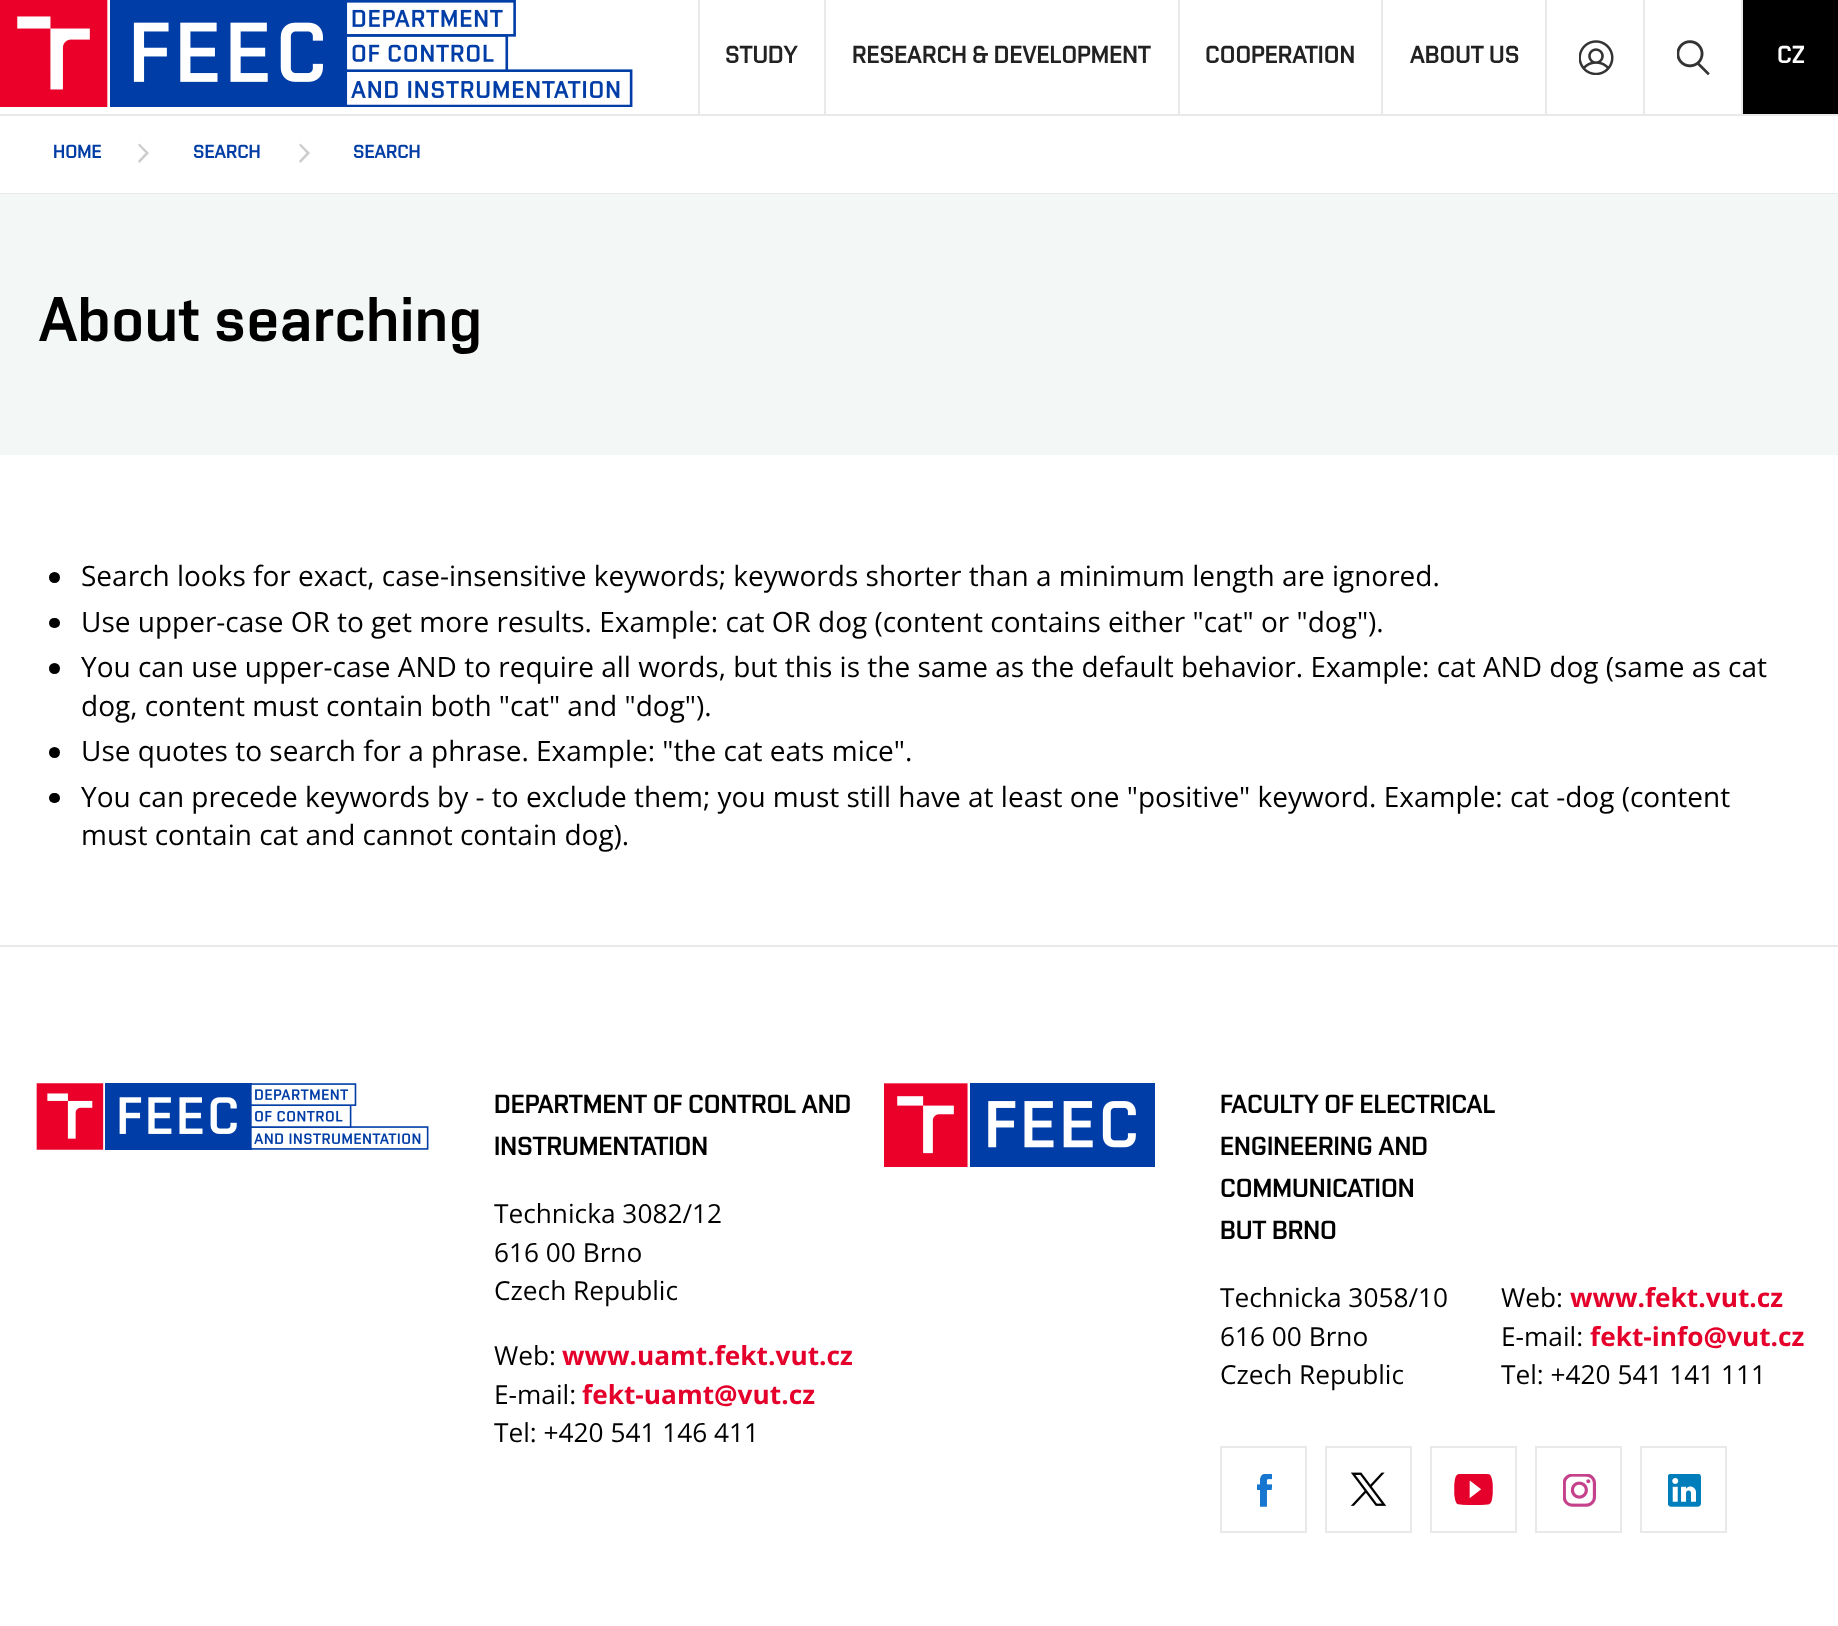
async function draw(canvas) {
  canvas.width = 1838
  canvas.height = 1626
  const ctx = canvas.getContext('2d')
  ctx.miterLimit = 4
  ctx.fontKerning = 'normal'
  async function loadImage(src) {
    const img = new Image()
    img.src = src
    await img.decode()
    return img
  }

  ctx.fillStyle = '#fff'
  ctx.fillRect(0, 0, 1838, 1626)
  ctx.fillStyle = '#e8eaea'
  ctx.fillRect(0, 114, 1838, 2)
  ctx.drawImage(await loadImage('image0.png'), 0, 0, 633, 107)
  ctx.fillRect(698, 0, 2, 114)
  ctx.font = '24.5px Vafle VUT'
  ctx.fillStyle = '#222'
  ctx.fillText('STUDY', 725, 63)
  ctx.fillStyle = '#e8eaea'
  ctx.fillRect(824, 0, 2, 114)
  ctx.fillStyle = '#222'
  ctx.fillText('RESEARCH & DEVELOPMENT', 852, 63)
  ctx.fillStyle = '#e8eaea'
  ctx.fillRect(1178, 0, 2, 114)
  ctx.fillStyle = '#222'
  ctx.fillText('COOPERATION', 1205, 63)
  ctx.fillStyle = '#e8eaea'
  ctx.fillRect(1381, 0, 2, 114)
  ctx.fillStyle = '#222'
  ctx.fillText('ABOUT US', 1410, 63)
  ctx.fillStyle = '#e8eaea'
  ctx.fillRect(1545, 0, 2, 114)
  ctx.drawImage(await loadImage('image1.png'), 1579, 40, 35, 35)
  ctx.fillRect(1643, 0, 2, 114)
  ctx.drawImage(await loadImage('image2.png'), 1677, 40, 33, 35)
  ctx.fillRect(1741, 0, 2, 114)
  ctx.fillStyle = '#000'
  ctx.fillRect(1743, 0, 95, 114)
  ctx.fillStyle = '#fff'
  ctx.fillText('CZ', 1777, 63)
  ctx.fillStyle = '#e8eaea'
  ctx.fillRect(0, 193, 1838, 1)
  ctx.fillStyle = '#ccc'
  ctx.beginPath()
  ctx.moveTo(138, 161)
  ctx.lineTo(139.5, 163)
  ctx.lineTo(149, 153)
  ctx.lineTo(139.5, 143.5)
  ctx.lineTo(138, 145)
  ctx.lineTo(145.5, 153)
  ctx.closePath()
  ctx.fill()
  ctx.font = '19px Vafle VUT'
  ctx.fillStyle = '#003da5'
  ctx.fillText('HOME', 53, 158)
  ctx.fillStyle = '#ccc'
  ctx.beginPath()
  ctx.moveTo(299, 161)
  ctx.lineTo(300.5, 163)
  ctx.lineTo(310, 153)
  ctx.lineTo(300.5, 143.5)
  ctx.lineTo(299, 145)
  ctx.lineTo(306.5, 153)
  ctx.closePath()
  ctx.fill()
  ctx.fillStyle = '#003da5'
  ctx.fillText('SEARCH', 193, 158)
  ctx.fillText('SEARCH', 353, 158)
  ctx.fillStyle = '#f3f7f6'
  ctx.fillRect(0, 194, 1838, 261)
  ctx.font = '63px Vafle VUT'
  ctx.fillStyle = '#000'
  ctx.fillText('About searching', 39, 341)
  ctx.beginPath()
  ctx.arc(54.5, 577.5, 5.5, 0, 2 * Math.PI)
  ctx.fill()
  ctx.font = '28px Open Sans'
  ctx.fillText('Search looks for exact, case-insensitive keywords; keywords shorter than a minimum length are ignored.', 81, 586)
  ctx.beginPath()
  ctx.roundRect(49, 618, 11, 10, 5)
  ctx.fill()
  ctx.fillText('Use upper-case OR to get more results. Example: cat OR dog (content contains either "cat" or "dog").', 81, 632)
  ctx.beginPath()
  ctx.arc(54.5, 668.5, 5.5, 0, 2 * Math.PI)
  ctx.fill()
  ctx.fillText('You can use upper-case AND to require all words, but this is the same as the default behavior. Example: cat AND dog (same as cat', 81, 677)
  ctx.fillText('dog, content must contain both "cat" and "dog").', 81, 716)
  ctx.beginPath()
  ctx.arc(54.5, 752.5, 5.5, 0, 2 * Math.PI)
  ctx.fill()
  ctx.fillText('Use quotes to search for a phrase. Example: "the cat eats mice".', 81, 761)
  ctx.beginPath()
  ctx.roundRect(49, 793, 11, 10, 5)
  ctx.fill()
  ctx.fillText('You can precede keywords by - to exclude them; you must still have at least one "positive" keyword. Example: cat -dog (content', 81, 807)
  ctx.fillText('must contain cat and cannot contain dog).', 81, 845)
  ctx.fillStyle = '#e8eaea'
  ctx.fillRect(0, 945, 1838, 2)
  ctx.drawImage(await loadImage('image3.png'), 36, 1083, 393, 67)
  ctx.font = '26.25px Vafle VUT'
  ctx.fillStyle = '#000'
  ctx.fillText('DEPARTMENT OF CONTROL AND', 494, 1113)
  ctx.fillText('INSTRUMENTATION', 494, 1155)
  ctx.font = '26.25px Open Sans'
  ctx.fillText('Technicka 3082/12', 494, 1223)
  ctx.fillText('616 00 Brno', 494, 1262)
  ctx.fillText('Czech Republic', 494, 1300)
  ctx.fillText('Web:', 494, 1365)
  ctx.font = 'bold 26.25px Open Sans'
  ctx.fillStyle = '#e4002b'
  ctx.fillText('www.uamt.fekt.vut.cz', 562, 1365)
  ctx.font = '26.25px Open Sans'
  ctx.fillStyle = '#000'
  ctx.fillText('E-mail:', 494, 1404)
  ctx.font = 'bold 26.25px Open Sans'
  ctx.fillStyle = '#e4002b'
  ctx.fillText('fekt-uamt@vut.cz', 582, 1404)
  ctx.font = '26.25px Open Sans'
  ctx.fillStyle = '#000'
  ctx.fillText('Tel: +420 541 146 411', 494, 1442)
  ctx.drawImage(await loadImage('image4.png'), 884, 1083, 271, 84)
  ctx.font = '26.25px Vafle VUT'
  ctx.fillText('FACULTY OF ELECTRICAL', 1220, 1113)
  ctx.fillText('ENGINEERING AND', 1220, 1155)
  ctx.fillText('COMMUNICATION', 1220, 1197)
  ctx.fillText('BUT BRNO', 1220, 1239)
  ctx.font = '26.25px Open Sans'
  ctx.fillText('Technicka 3058/10', 1220, 1307)
  ctx.fillText('616 00 Brno', 1220, 1346)
  ctx.fillText('Czech Republic', 1220, 1384)
  ctx.fillText('Web:', 1501, 1307)
  ctx.font = 'bold 26.25px Open Sans'
  ctx.fillStyle = '#e4002b'
  ctx.fillText('www.fekt.vut.cz', 1570, 1307)
  ctx.font = '26.25px Open Sans'
  ctx.fillStyle = '#000'
  ctx.fillText('E-mail:', 1501, 1346)
  ctx.font = 'bold 26.25px Open Sans'
  ctx.fillStyle = '#e4002b'
  ctx.fillText('fekt-info@vut.cz', 1590, 1346)
  ctx.font = '26.25px Open Sans'
  ctx.fillStyle = '#000'
  ctx.fillText('Tel: +420 541 141 111', 1501, 1384)
  ctx.drawImage(await loadImage('image5.png'), 1257, 1474, 15, 33)
  ctx.strokeStyle = '#e8eaea'
  ctx.lineWidth = 2
  ctx.strokeRect(1221, 1447, 85, 85)
  ctx.drawImage(await loadImage('image6.png'), 1350, 1472, 37, 34)
  ctx.strokeRect(1326, 1447, 85, 85)
  ctx.drawImage(await loadImage('image7.png'), 1454, 1474, 39, 31)
  ctx.strokeRect(1431, 1447, 85, 85)
  ctx.drawImage(await loadImage('image8.png'), 1563, 1474, 33, 33)
  ctx.strokeRect(1536, 1447, 85, 85)
  ctx.drawImage(await loadImage('image9.png'), 1668, 1474, 33, 33)
  ctx.strokeRect(1641, 1447, 85, 85)
}

draw(document.querySelector('canvas'))
